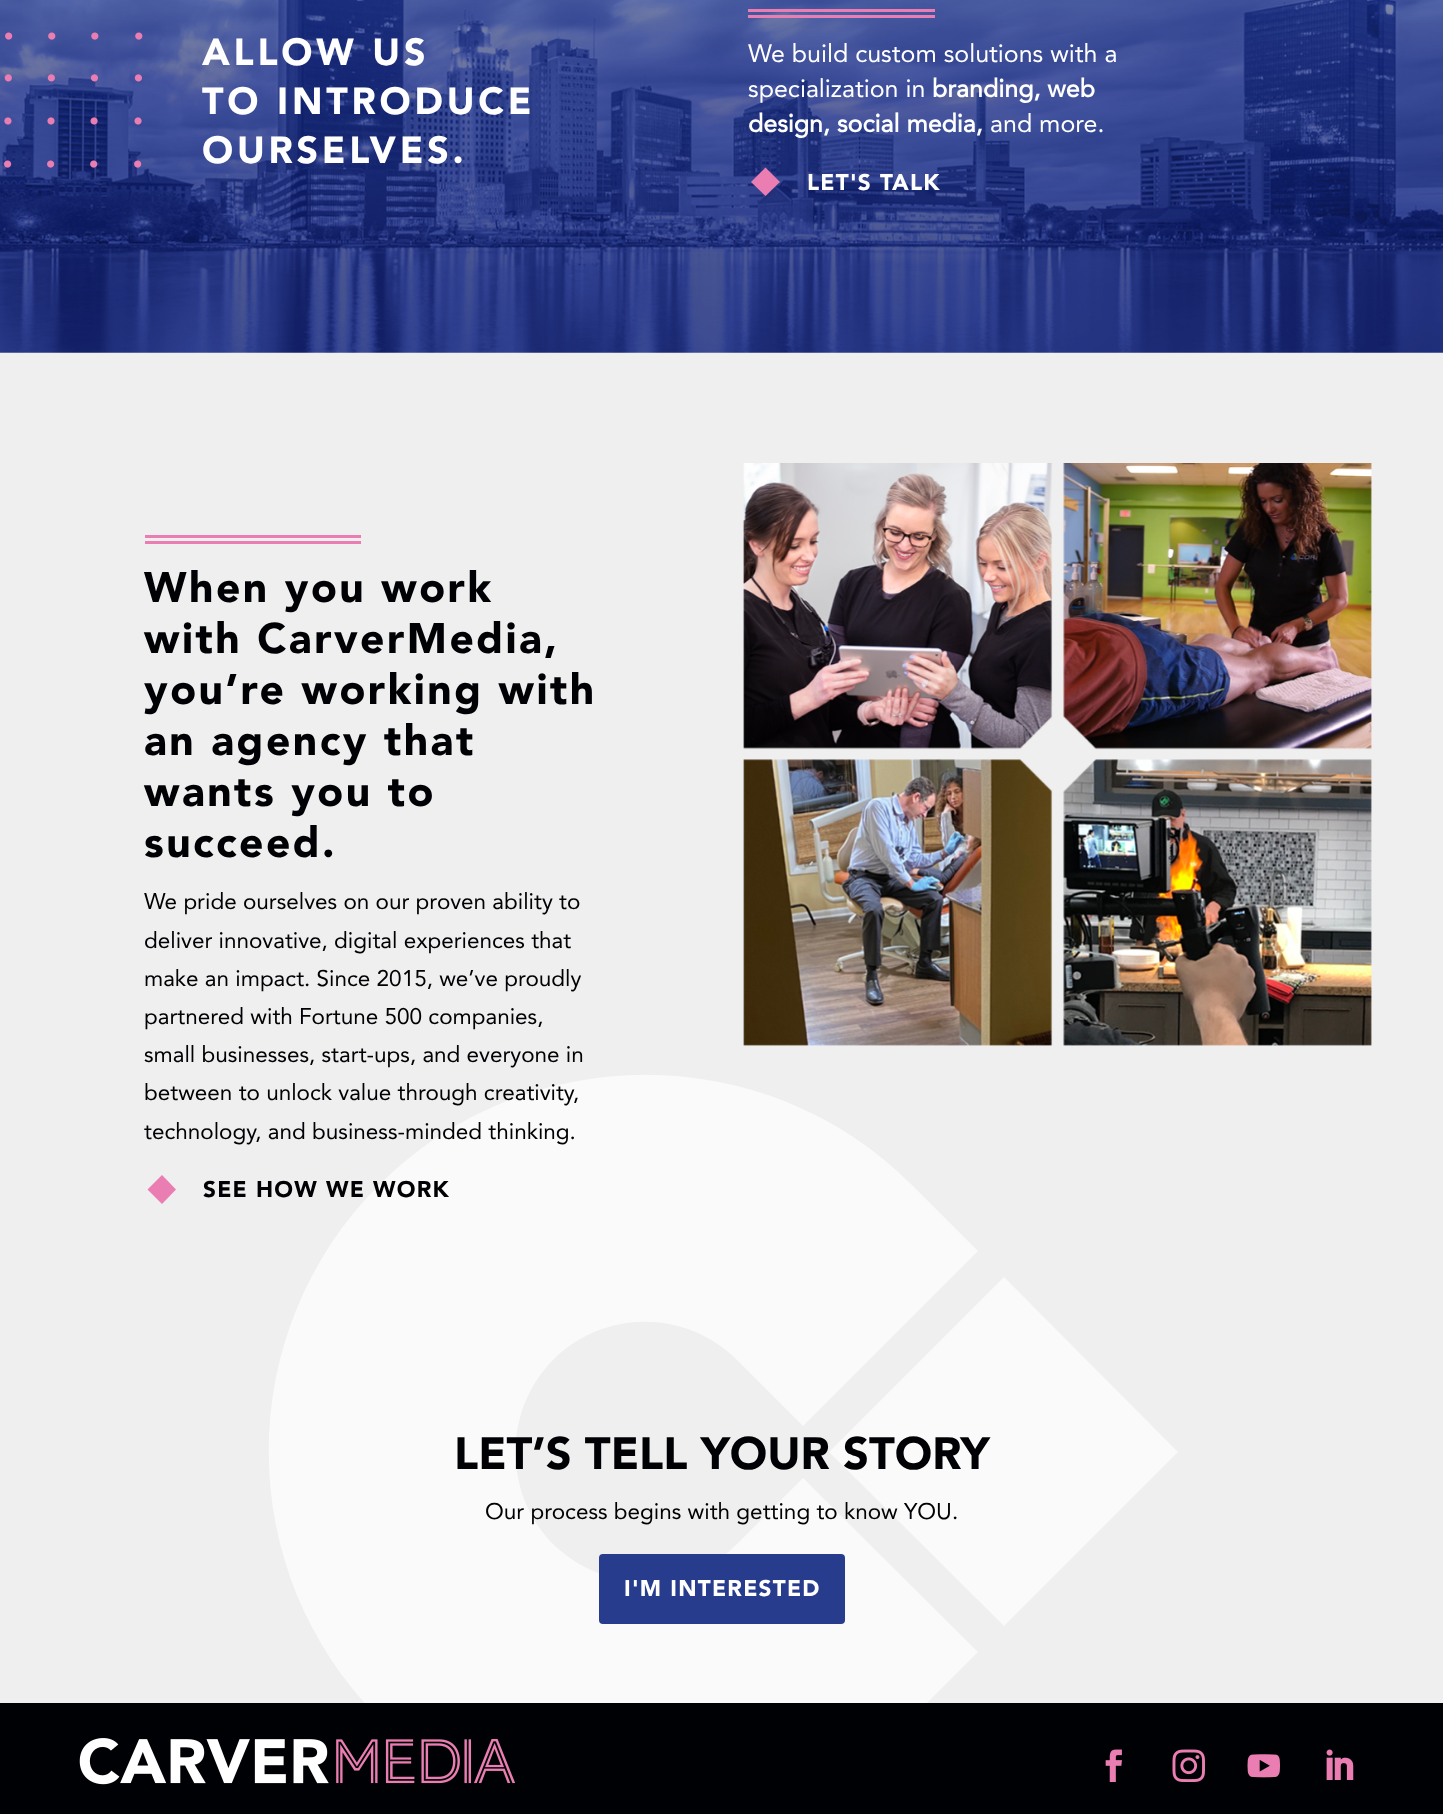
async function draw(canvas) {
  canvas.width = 1443
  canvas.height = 1814
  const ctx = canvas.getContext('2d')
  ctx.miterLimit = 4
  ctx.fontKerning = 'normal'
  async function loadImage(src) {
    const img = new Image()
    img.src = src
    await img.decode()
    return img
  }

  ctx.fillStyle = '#fff'
  ctx.fillRect(0, 0, 1443, 1814)
  ctx.drawImage(await loadImage('image0.png'), 0, 0, 1443, 353)
  ctx.drawImage(await loadImage('image1.png'), 4, 32, 139, 136)
  ctx.letterSpacing = '3.75px'
  ctx.font = '900 37.5px Avenir'
  ctx.fillText('ALLOW US', 202, 65)
  ctx.fillText('TO INTRODUCE', 202, 114)
  ctx.fillText('OURSELVES.', 202, 163)
  ctx.fillStyle = '#ea7db1'
  ctx.fillRect(748, 9, 187, 3)
  ctx.fillRect(748, 15, 187, 3)
  ctx.letterSpacing = '0px'
  ctx.font = '25px Avenir'
  ctx.fillStyle = '#fff'
  ctx.fillText('We build custom solutions with a', 748, 62)
  ctx.fillText('specialization in', 748, 97)
  ctx.font = 'bold 25px Avenir'
  ctx.fillText('branding, web', 932, 97)
  ctx.fillText('design, social media,', 748, 132)
  ctx.font = '25px Avenir'
  ctx.fillText('and more.', 990, 132)
  ctx.fillStyle = '#ea7db1'
  ctx.beginPath()
  ctx.moveTo(780, 182)
  ctx.lineTo(765.5, 167.5)
  ctx.lineTo(751, 182)
  ctx.lineTo(765.5, 196)
  ctx.closePath()
  ctx.fill()
  ctx.letterSpacing = '1.25px'
  ctx.font = '900 22.5px Avenir'
  ctx.fillStyle = '#fff'
  ctx.fillText('LET\'S TALK', 807, 190)
  ctx.fillStyle = '#efefef'
  ctx.fillRect(0, 353, 1443, 1350)
  ctx.fillStyle = '#fafafa'
  ctx.beginPath()
  ctx.moveTo(803, 1478)
  ctx.lineTo(737, 1544)
  ctx.bezierCurveTo(686, 1595, 604, 1594, 553, 1544)
  ctx.bezierCurveTo(503, 1493, 503, 1411, 553, 1360)
  ctx.bezierCurveTo(604, 1309, 686, 1309, 737, 1360)
  ctx.lineTo(803, 1426)
  ctx.lineTo(978, 1251)
  ctx.lineTo(912, 1185)
  ctx.bezierCurveTo(765, 1038, 526, 1038, 379, 1185)
  ctx.bezierCurveTo(232, 1332, 232, 1571, 379, 1718)
  ctx.bezierCurveTo(449, 1789, 545, 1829, 645, 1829)
  ctx.bezierCurveTo(745, 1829, 841, 1789, 912, 1718)
  ctx.lineTo(978, 1652)
  ctx.closePath()
  ctx.fill()
  ctx.beginPath()
  ctx.moveTo(1178, 1452)
  ctx.lineTo(1004, 1277)
  ctx.lineTo(829, 1452)
  ctx.lineTo(1004, 1626)
  ctx.closePath()
  ctx.fill()
  ctx.fillStyle = '#ea7db1'
  ctx.fillRect(145, 535, 216, 3)
  ctx.fillRect(145, 541, 216, 3)
  ctx.letterSpacing = '2.5px'
  ctx.font = '900 42.5px Avenir'
  ctx.fillStyle = '#000104'
  ctx.fillText('When you work', 144, 602)
  ctx.fillText('with CarverMedia,', 144, 653)
  ctx.fillText('you’re working with', 144, 704)
  ctx.fillText('an agency that', 144, 755)
  ctx.fillText('wants you to', 144, 806)
  ctx.fillText('succeed.', 144, 857)
  ctx.letterSpacing = '0px'
  ctx.font = '22.5px Avenir'
  ctx.fillText('We pride ourselves on our proven ability to', 144, 909)
  ctx.fillText('deliver innovative, digital experiences that', 144, 948)
  ctx.fillText('make an impact. Since 2015, we’ve proudly', 144, 986)
  ctx.fillText('partnered with Fortune 500 companies,', 144, 1024)
  ctx.fillText('small businesses, start-ups, and everyone in', 144, 1062)
  ctx.fillText('between to unlock value through creativity,', 144, 1100)
  ctx.fillText('technology, and business-minded thinking.', 144, 1139)
  ctx.fillStyle = '#ea7db1'
  ctx.beginPath()
  ctx.moveTo(176, 1189.5)
  ctx.lineTo(162, 1175)
  ctx.lineTo(147.5, 1189.5)
  ctx.lineTo(162, 1204)
  ctx.closePath()
  ctx.fill()
  ctx.letterSpacing = '1.25px'
  ctx.font = '900 22.5px Avenir'
  ctx.fillStyle = '#000104'
  ctx.fillText('SEE HOW WE WORK', 203, 1197)
  ctx.drawImage(await loadImage('image2.png'), 743, 463, 629, 583)
  ctx.letterSpacing = '0px'
  ctx.font = '900 45px Avenir'
  ctx.fillText('LET’S TELL YOUR STORY', 454, 1469)
  ctx.font = '22.5px Avenir'
  ctx.fillText('Our process begins with getting to know YOU.', 485, 1519)
  ctx.fillStyle = '#273c8d'
  ctx.beginPath()
  ctx.roundRect(599, 1554, 246, 70, 4)
  ctx.fill()
  ctx.letterSpacing = '1.25px'
  ctx.font = '900 22.5px Avenir'
  ctx.fillStyle = '#fff'
  ctx.fillText('I\'M INTERESTED', 624, 1596)
  ctx.fillStyle = '#000104'
  ctx.fillRect(0, 1703, 1443, 111)
  ctx.drawImage(await loadImage('image3.png'), 79, 1738, 437, 47)
  ctx.drawImage(await loadImage('image4.png'), 1105, 1749, 17, 33)
  ctx.drawImage(await loadImage('image5.png'), 1172, 1749, 33, 33)
  ctx.drawImage(await loadImage('image6.png'), 1247, 1754, 33, 24)
  ctx.drawImage(await loadImage('image7.png'), 1326, 1749, 28, 31)
}

draw(document.querySelector('canvas'))
